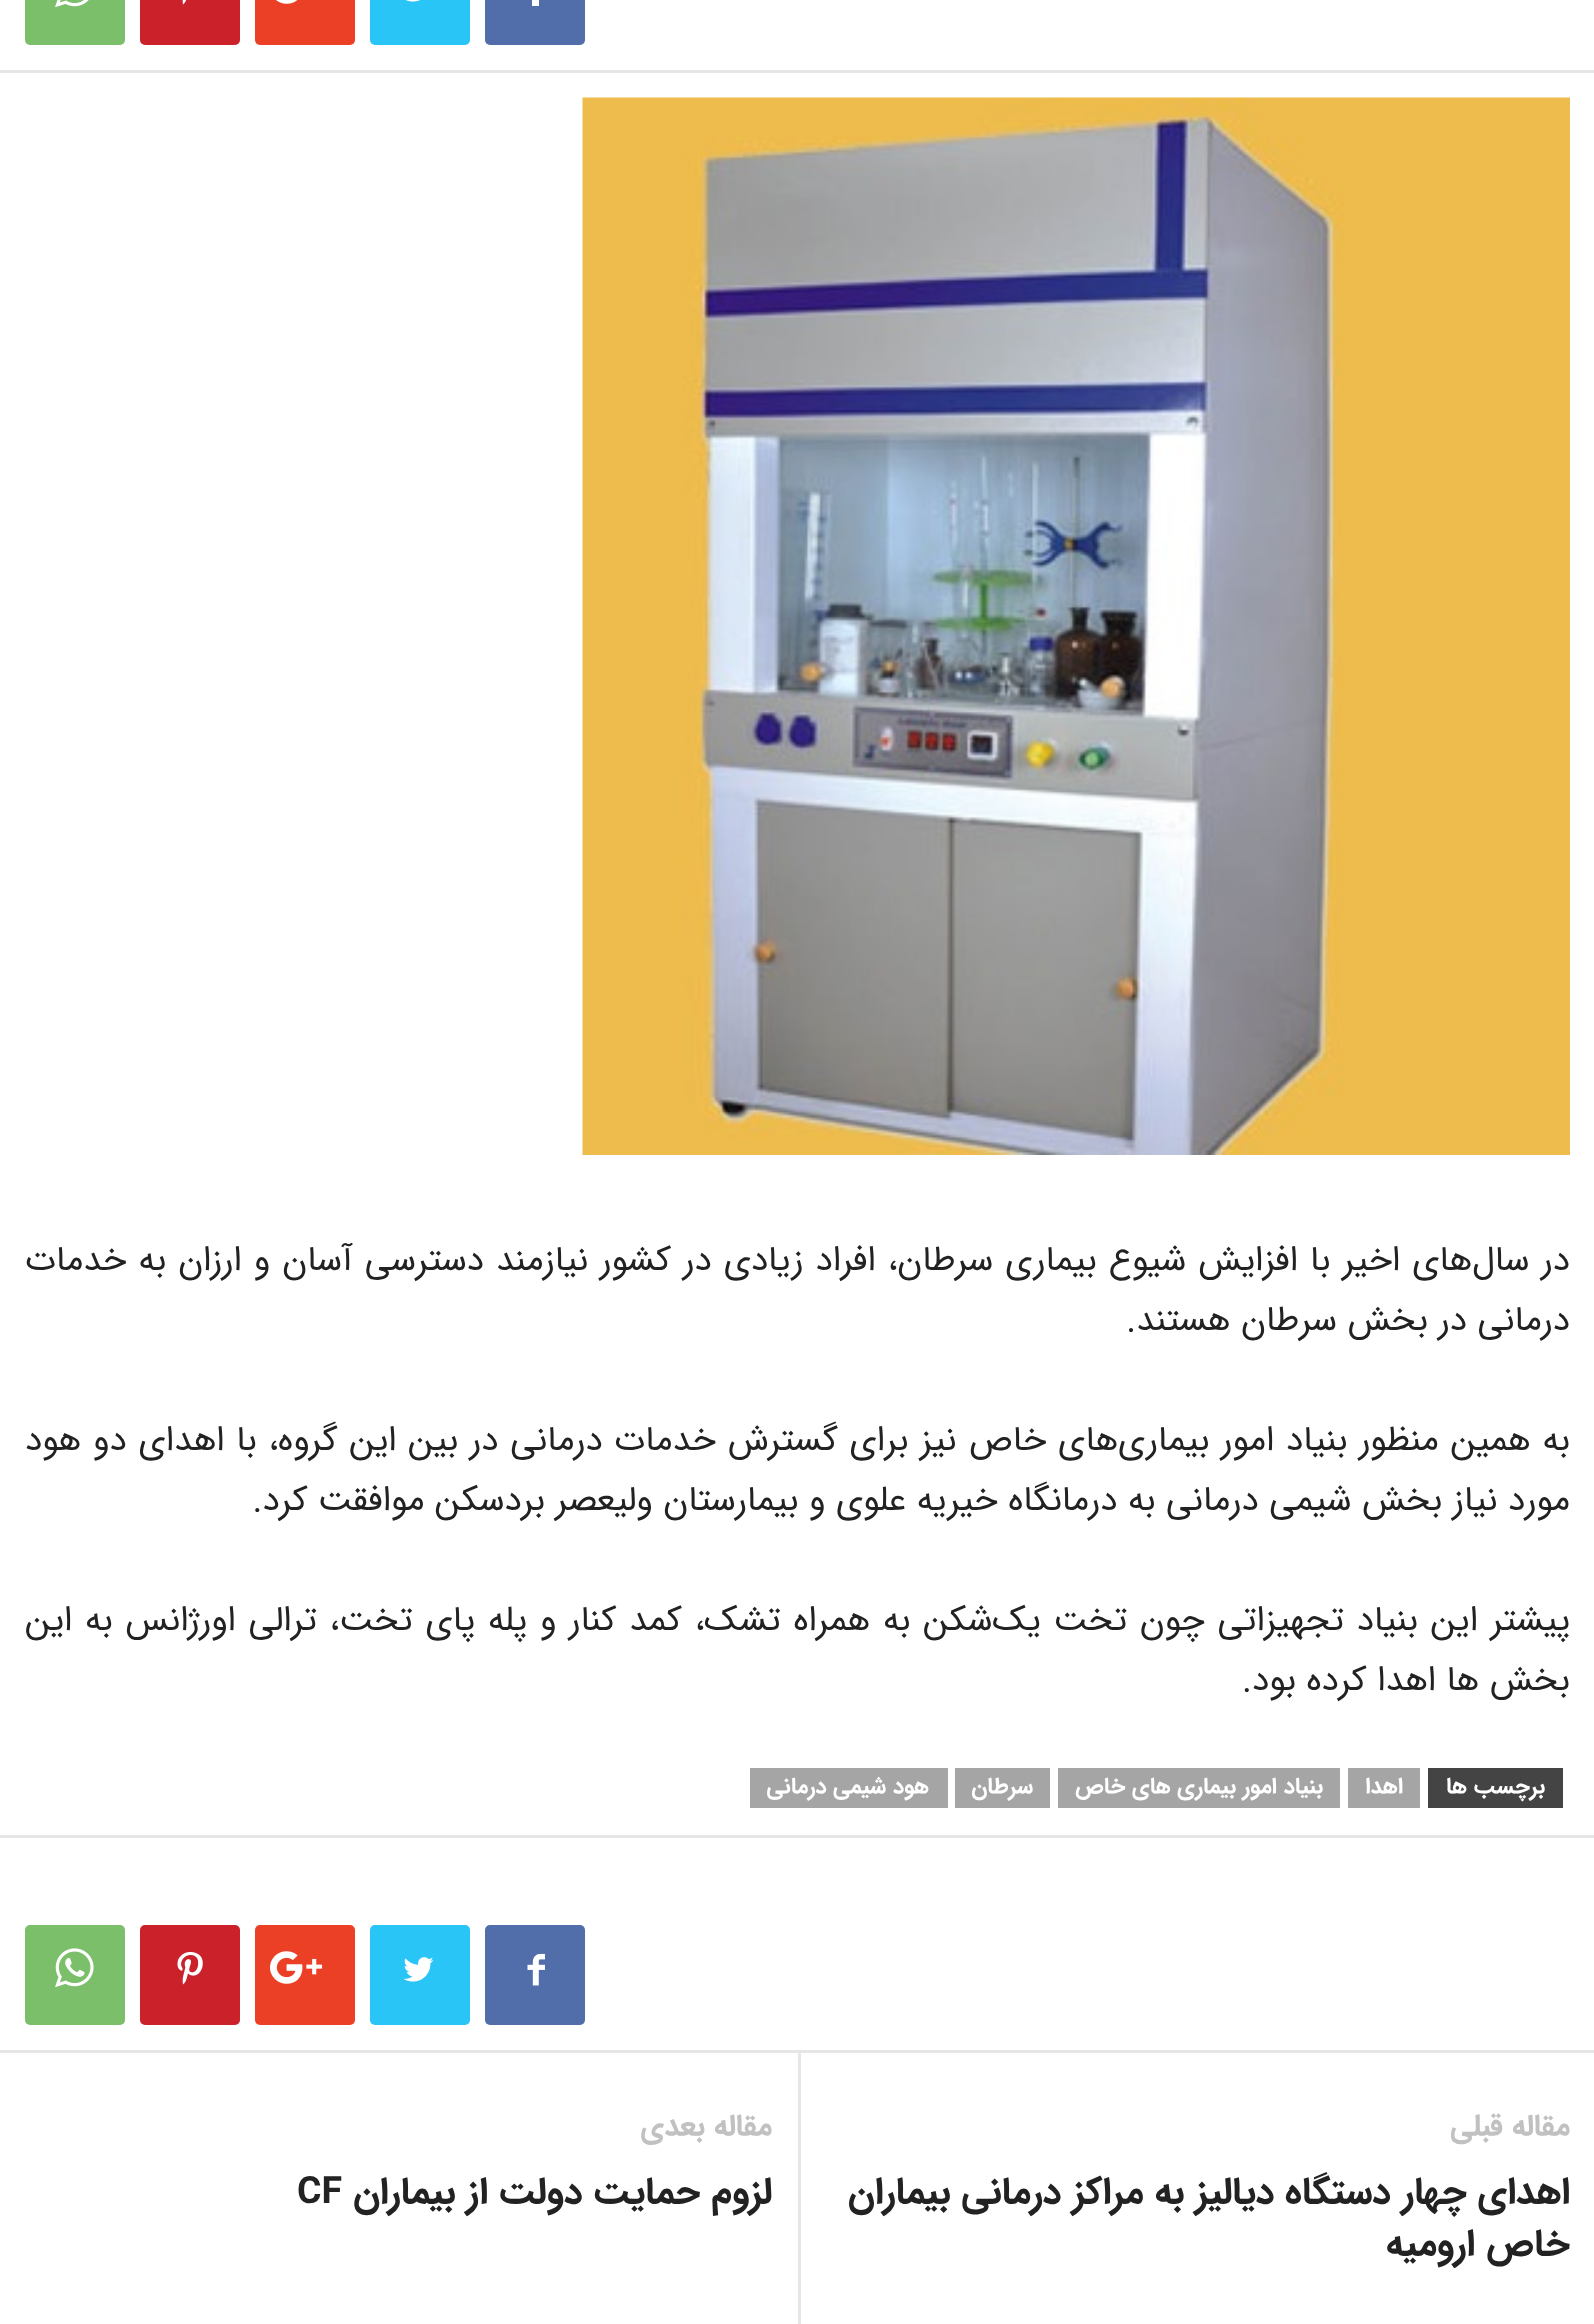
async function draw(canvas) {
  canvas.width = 1594
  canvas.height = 2324
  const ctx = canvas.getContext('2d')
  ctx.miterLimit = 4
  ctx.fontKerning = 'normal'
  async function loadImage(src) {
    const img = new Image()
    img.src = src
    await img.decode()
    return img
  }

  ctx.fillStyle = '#fff'
  ctx.fillRect(0, 0, 1594, 2324)
  ctx.fillStyle = '#516eab'
  ctx.beginPath()
  ctx.roundRect(485, -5, 100, 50, 5)
  ctx.fill()
  ctx.fillStyle = '#fff'
  ctx.fillRect(532, 0, 7, 6)
  ctx.fillStyle = '#29c5f6'
  ctx.beginPath()
  ctx.roundRect(370, -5, 100, 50, 5)
  ctx.fill()
  ctx.drawImage(await loadImage('image0.png'), 405, 0, 15, 2)
  ctx.fillStyle = '#eb4026'
  ctx.beginPath()
  ctx.roundRect(255, -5, 100, 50, 5)
  ctx.fill()
  ctx.drawImage(await loadImage('image1.png'), 276, 0, 22, 4)
  ctx.fillStyle = '#ca212a'
  ctx.beginPath()
  ctx.roundRect(140, -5, 100, 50, 5)
  ctx.fill()
  ctx.drawImage(await loadImage('image2.png'), 182, 0, 5, 5)
  ctx.fillStyle = '#7bbf6a'
  ctx.beginPath()
  ctx.roundRect(25, -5, 100, 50, 5)
  ctx.fill()
  ctx.drawImage(await loadImage('image3.png'), 55, 0, 34, 8)
  ctx.fillStyle = '#e6e6e6'
  ctx.fillRect(0, 70, 1594, 3)
  ctx.drawImage(await loadImage('image4.png'), 582, 97, 988, 1058)
  ctx.wordSpacing = '1.5px'
  ctx.direction = 'rtl'
  ctx.font = '35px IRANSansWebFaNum'
  ctx.fillStyle = '#222'
  ctx.fillText('در سال‌های اخیر با افزایش شیوع بیماری سرطان، افراد زیادی در کشور نیازمند دسترسی آسان و ارزان‌ به خدمات', 1570, 1270)
  ctx.wordSpacing = '0px'
  ctx.fillText('درمانی در بخش سرطان هستند.', 1570, 1330)
  ctx.wordSpacing = '1.25px'
  ctx.fillText('به همین منظور بنیاد امور بیماری‌های خاص نیز برای گسترش خدمات درمانی در بین این گروه، با اهدای دو هود', 1570, 1450)
  ctx.wordSpacing = '0px'
  ctx.fillText('مورد نیاز بخش شیمی درمانی به درمانگاه خیریه علوی و بیمارستان ولیعصر بردسکن موافقت کرد.', 1570, 1510)
  ctx.wordSpacing = '2.25px'
  ctx.fillText('پیشتر این بنیاد تجهیزاتی چون تخت یک‌شکن به همراه تشک، کمد کنار و پله پای تخت، ترالی اورژانس به این', 1570, 1630)
  ctx.wordSpacing = '0px'
  ctx.fillText('بخش ها اهدا کرده بود.', 1570, 1690)
  ctx.fillStyle = '#444'
  ctx.fillRect(1428, 1768, 135, 40)
  ctx.font = 'bold 22.5px IRANSansWebFaNum'
  ctx.fillStyle = '#fff'
  ctx.fillText('برچسب ها', 1545, 1793)
  ctx.fillStyle = '#a5a5a5'
  ctx.fillRect(1348, 1768, 72, 40)
  ctx.fillStyle = '#fff'
  ctx.fillText('اهدا', 1403, 1793)
  ctx.fillStyle = '#a5a5a5'
  ctx.fillRect(1058, 1768, 282, 40)
  ctx.fillStyle = '#fff'
  ctx.fillText('بنیاد امور بیماری های خاص', 1323, 1793)
  ctx.fillStyle = '#a5a5a5'
  ctx.fillRect(955, 1768, 95, 40)
  ctx.fillStyle = '#fff'
  ctx.fillText('سرطان', 1033, 1793)
  ctx.fillStyle = '#a5a5a5'
  ctx.fillRect(750, 1768, 198, 40)
  ctx.fillStyle = '#fff'
  ctx.fillText('هود شیمی درمانی', 929, 1793)
  ctx.fillStyle = '#e6e6e6'
  ctx.fillRect(0, 1835, 1594, 3)
  ctx.fillStyle = '#516eab'
  ctx.beginPath()
  ctx.roundRect(485, 1925, 100, 100, 5)
  ctx.fill()
  ctx.drawImage(await loadImage('image5.png'), 527, 1953, 18, 33)
  ctx.fillStyle = '#29c5f6'
  ctx.beginPath()
  ctx.roundRect(370, 1925, 100, 100, 5)
  ctx.fill()
  ctx.drawImage(await loadImage('image6.png'), 403, 1957, 31, 25)
  ctx.fillStyle = '#eb4026'
  ctx.beginPath()
  ctx.roundRect(255, 1925, 100, 100, 5)
  ctx.fill()
  ctx.drawImage(await loadImage('image7.png'), 270, 1951, 53, 33)
  ctx.fillStyle = '#ca212a'
  ctx.beginPath()
  ctx.roundRect(140, 1925, 100, 100, 5)
  ctx.fill()
  ctx.drawImage(await loadImage('image8.png'), 177, 1952, 26, 33)
  ctx.fillStyle = '#7bbf6a'
  ctx.beginPath()
  ctx.roundRect(25, 1925, 100, 100, 5)
  ctx.fill()
  ctx.drawImage(await loadImage('image9.png'), 55, 1948, 39, 40)
  ctx.fillStyle = '#e6e6e6'
  ctx.fillRect(0, 2050, 1594, 3)
  ctx.font = 'bold 30px IRANSansWebFaNum'
  ctx.fillStyle = '#c1c1c1'
  ctx.fillText('مقاله قبلی', 1570, 2135)
  ctx.font = 'bold 37.5px IRANSansWebFaNum'
  ctx.fillStyle = '#222'
  ctx.fillText('اهدای چهار دستگاه دیالیز به مراکز درمانی بیماران', 1570, 2203)
  ctx.fillText('خاص ارومیه', 1570, 2255)
  ctx.fillStyle = '#e6e6e6'
  ctx.fillRect(798, 2053, 3, 271)
  ctx.font = 'bold 30px IRANSansWebFaNum'
  ctx.fillStyle = '#c1c1c1'
  ctx.fillText('مقاله بعدی', 772, 2135)
  ctx.font = 'bold 37.5px IRANSansWebFaNum'
  ctx.fillStyle = '#222'
  ctx.fillText('لزوم حمایت دولت از بیماران', 772, 2203)
  ctx.direction = 'ltr'
  ctx.fillText('CF', 297, 2203)
}

draw(document.querySelector('canvas'))
